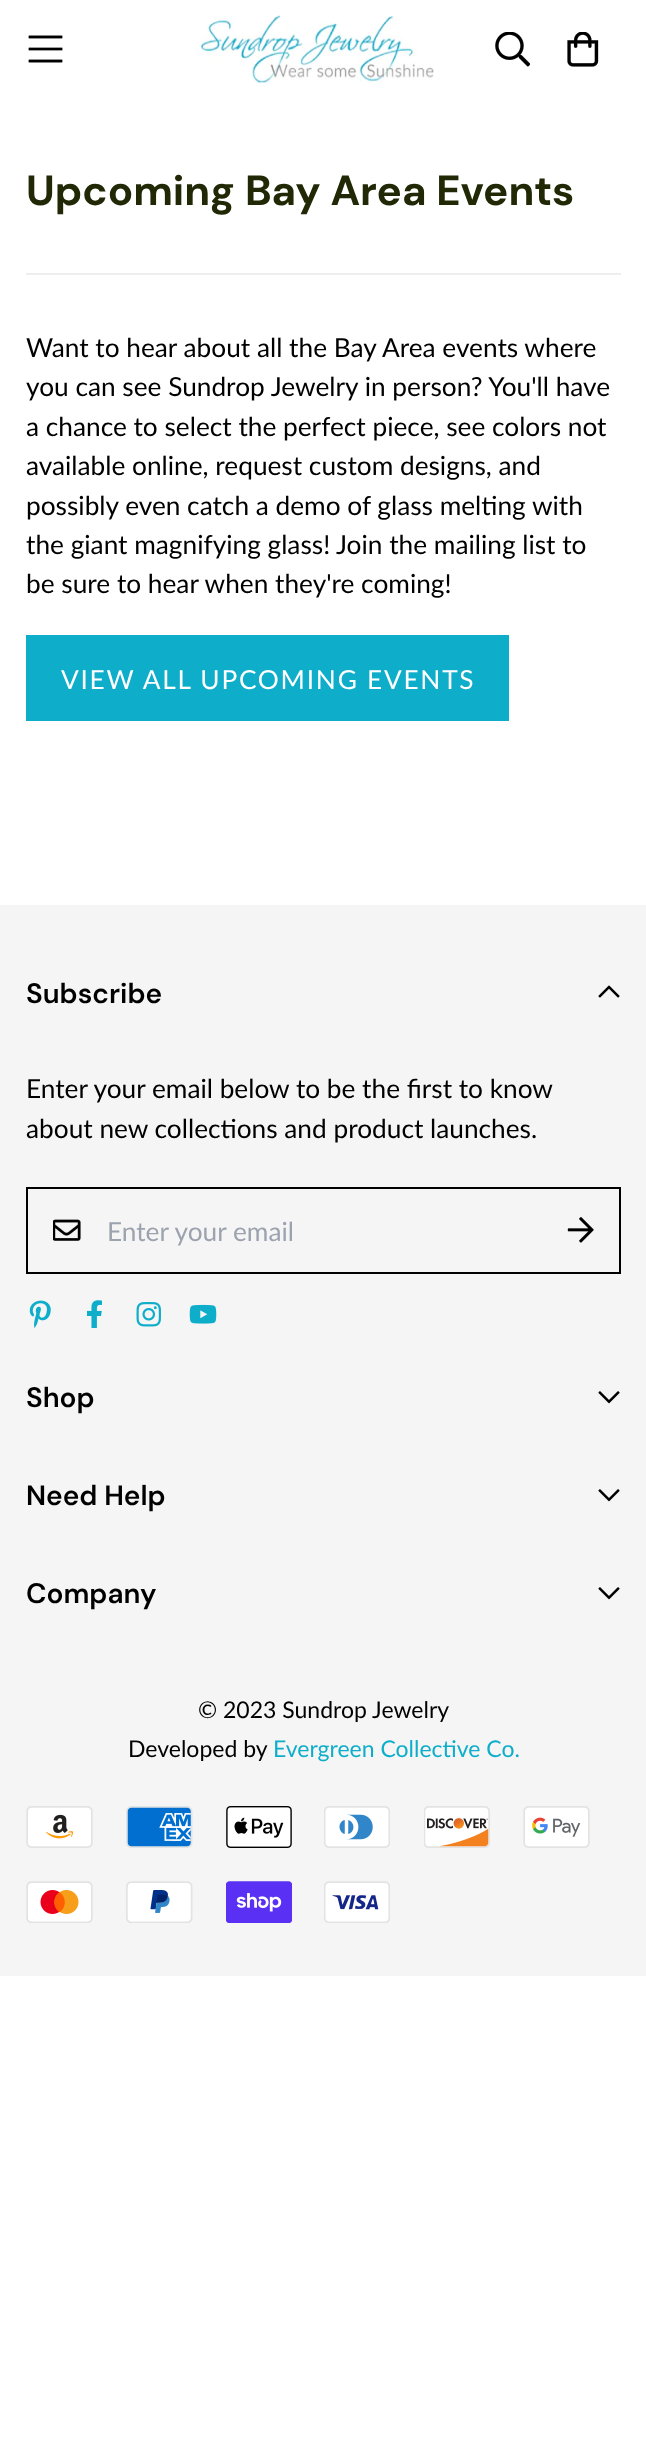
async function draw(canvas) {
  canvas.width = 646
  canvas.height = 2448
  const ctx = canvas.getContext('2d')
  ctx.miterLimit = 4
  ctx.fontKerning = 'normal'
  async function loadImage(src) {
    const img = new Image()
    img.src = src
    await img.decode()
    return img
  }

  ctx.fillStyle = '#fff'
  ctx.fillRect(0, 0, 646, 2448)
  ctx.drawImage(await loadImage('image0.png'), 28, 35, 35, 28)
  ctx.drawImage(await loadImage('image1.png'), 201, 15, 233, 68)
  ctx.drawImage(await loadImage('image2.png'), 495, 32, 35, 35)
  ctx.drawImage(await loadImage('image3.png'), 567, 32, 32, 35)
  ctx.fillStyle = '#eee'
  ctx.fillRect(26, 273, 595, 2)
  ctx.font = 'bold 42px DM Sans'
  ctx.fillStyle = '#212806'
  ctx.fillText('Upcoming Bay Area Events', 26, 205)
  ctx.font = '26.25px Lato'
  ctx.fillStyle = '#000'
  ctx.fillText('Want to hear about all the Bay Area events where', 26, 357)
  ctx.fillText('you can see Sundrop Jewelry in person? You\'ll have', 26, 396)
  ctx.fillText('a chance to select the perfect piece, see colors not', 26, 436)
  ctx.fillText('available online, request custom designs, and', 26, 475)
  ctx.fillText('possibly even catch a demo of glass melting with', 26, 515)
  ctx.fillText('the giant magnifying glass!', 26, 554)
  ctx.fillText('Join the mailing list to', 336, 554)
  ctx.fillText('be sure to hear when they\'re coming!', 26, 593)
  ctx.fillStyle = '#0eaecb'
  ctx.fillRect(26, 635, 483, 86)
  ctx.letterSpacing = '1.75px'
  ctx.fillStyle = '#fff'
  ctx.fillText('VIEW ALL UPCOMING EVENTS', 61, 689)
  ctx.fillStyle = '#f5f5f5'
  ctx.fillRect(0, 905, 646, 1071)
  ctx.letterSpacing = '0px'
  ctx.font = '600 28px DM Sans'
  ctx.fillStyle = '#000'
  ctx.fillText('Subscribe', 26, 1003)
  ctx.drawImage(await loadImage('image4.png'), 598, 985, 22, 13)
  ctx.font = '26.25px Lato'
  ctx.fillText('Enter your email below to be the first to know', 26, 1098)
  ctx.fillText('about new collections and product launches.', 26, 1138)
  ctx.strokeStyle = '#000'
  ctx.lineWidth = 2
  ctx.strokeRect(27, 1188, 593, 85)
  ctx.drawImage(await loadImage('image5.png'), 53, 1219, 28, 22)
  ctx.fillStyle = '#9ca3af'
  ctx.fillText('Enter your email', 107, 1241)
  ctx.drawImage(await loadImage('image6.png'), 567, 1217, 27, 26)
  ctx.drawImage(await loadImage('image7.png'), 29, 1300, 22, 28)
  ctx.drawImage(await loadImage('image8.png'), 87, 1300, 15, 28)
  ctx.drawImage(await loadImage('image9.png'), 136, 1302, 25, 25)
  ctx.drawImage(await loadImage('image10.png'), 189, 1304, 28, 20)
  ctx.font = '600 28px DM Sans'
  ctx.fillStyle = '#000'
  ctx.fillText('Shop', 26, 1407)
  ctx.drawImage(await loadImage('image11.png'), 598, 1391, 22, 13)
  ctx.fillText('Need Help', 26, 1505)
  ctx.drawImage(await loadImage('image11.png'), 598, 1489, 22, 13)
  ctx.fillText('Company', 26, 1603)
  ctx.drawImage(await loadImage('image11.png'), 598, 1587, 22, 13)
  ctx.font = '23px Lato'
  ctx.fillText('© 2023 Sundrop Jewelry', 198, 1718)
  ctx.fillText('Developed by', 128, 1757)
  ctx.fillStyle = '#0eaecb'
  ctx.fillText('Evergreen Collective Co.', 273, 1757)
  ctx.drawImage(await loadImage('image12.png'), 26, 1806, 67, 42)
  ctx.drawImage(await loadImage('image13.png'), 126, 1806, 67, 42)
  ctx.drawImage(await loadImage('image14.png'), 226, 1806, 66, 42)
  ctx.drawImage(await loadImage('image15.png'), 324, 1806, 66, 42)
  ctx.drawImage(await loadImage('image16.png'), 424, 1806, 66, 42)
  ctx.drawImage(await loadImage('image17.png'), 523, 1806, 67, 42)
  ctx.drawImage(await loadImage('image18.png'), 26, 1881, 67, 42)
  ctx.drawImage(await loadImage('image19.png'), 126, 1881, 67, 42)
  ctx.drawImage(await loadImage('image20.png'), 226, 1881, 66, 42)
  ctx.drawImage(await loadImage('image21.png'), 324, 1881, 66, 42)
}

draw(document.querySelector('canvas'))
